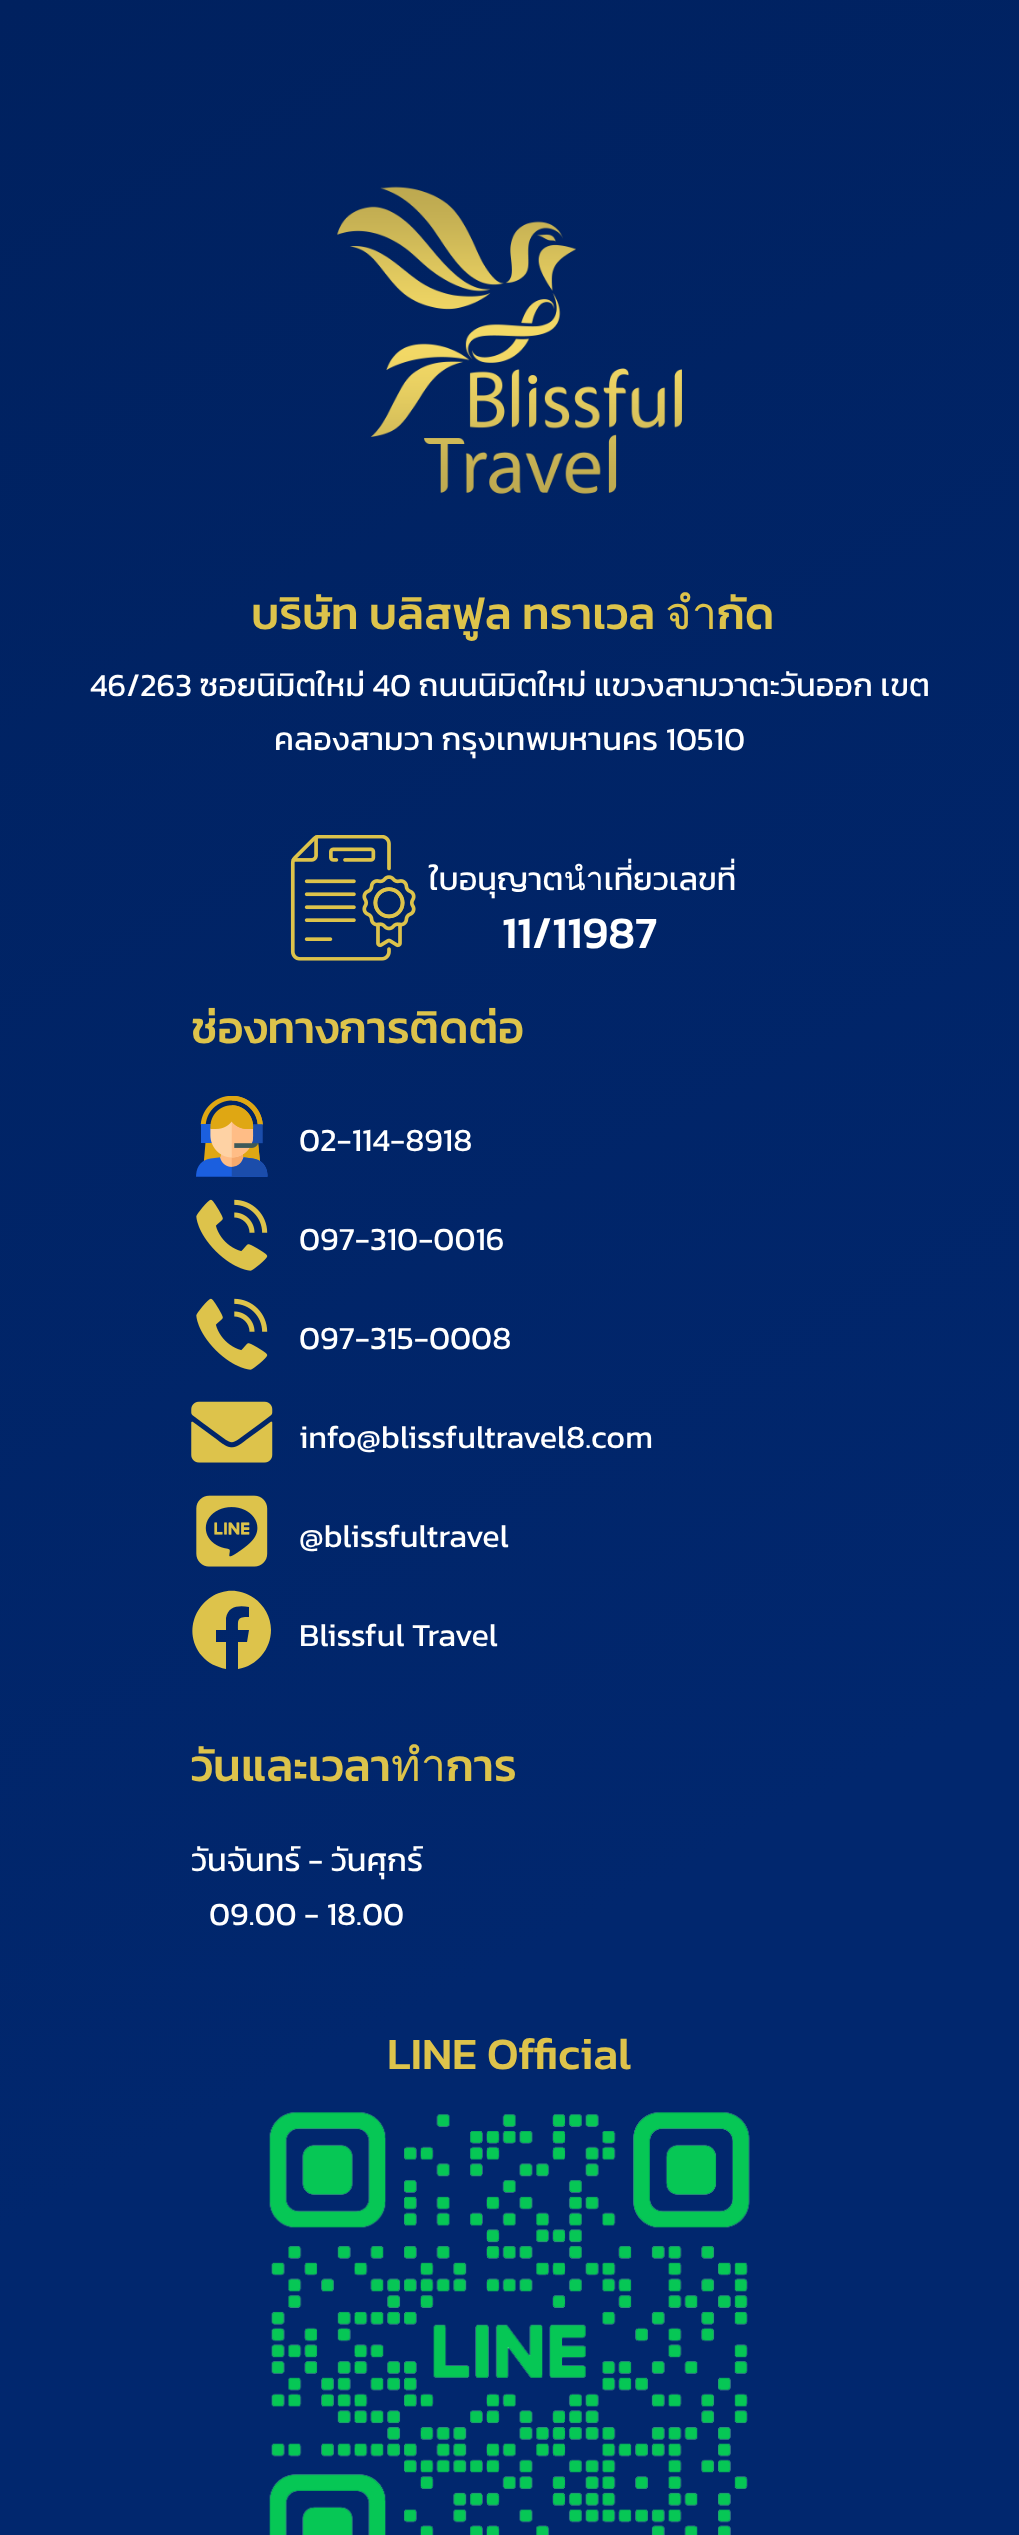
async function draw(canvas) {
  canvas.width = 1019
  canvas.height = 2535
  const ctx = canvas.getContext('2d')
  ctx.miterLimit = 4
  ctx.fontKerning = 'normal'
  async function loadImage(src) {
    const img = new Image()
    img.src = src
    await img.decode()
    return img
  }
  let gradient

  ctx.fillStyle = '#fff'
  ctx.fillRect(0, 0, 1019, 2535)
  gradient = ctx.createLinearGradient(-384, 204, 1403, 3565)
  gradient.addColorStop(0, '#00215f')
  gradient.addColorStop(0.52, '#01276e')
  ctx.fillStyle = gradient
  ctx.fillRect(0, 0, 1019, 2535)
  ctx.drawImage(await loadImage('image0.png'), 337, 186, 345, 308)
  ctx.font = '500 45px Kanit'
  ctx.fillStyle = '#ddc34b'
  ctx.fillText('บริษัท บลิสฟูล ทราเวล จำกัด', 251, 629)
  ctx.font = '32.4px Kanit'
  ctx.fillStyle = '#fff'
  ctx.fillText('46/263 ซอยนิมิตใหม่ 40 ถนนนิมิตใหม่ แขวงสามวาตะวันออก เขต', 90, 696)
  ctx.fillText('คลองสามวา กรุงเทพมหานคร 10510', 274, 750)
  ctx.drawImage(await loadImage('image1.png'), 290, 835, 126, 126)
  ctx.fillText('ใบอนุญาตนำเที่ยวเลขที่', 429, 890)
  ctx.font = '500 45px Kanit'
  ctx.fillText('11/11987', 502, 948)
  ctx.fillStyle = '#ddc34b'
  ctx.fillText('ช่องทางการติดต่อ', 191, 1043)
  ctx.drawImage(await loadImage('image2.png'), 196, 1096, 72, 81)
  ctx.font = '32.4px Kanit'
  ctx.fillStyle = '#fff'
  ctx.fillText('02-114-8918', 299, 1151)
  ctx.drawImage(await loadImage('image3.png'), 196, 1199, 72, 72)
  ctx.fillText('097-310-0016', 299, 1250)
  ctx.drawImage(await loadImage('image4.png'), 196, 1298, 72, 72)
  ctx.fillText('097-315-0008', 299, 1349)
  ctx.drawImage(await loadImage('image5.png'), 191, 1401, 82, 62)
  ctx.fillText('info@blissfultravel8.com', 299, 1448)
  ctx.drawImage(await loadImage('image6.png'), 196, 1495, 72, 72)
  ctx.fillText('@blissfultravel', 299, 1547)
  ctx.fillStyle = '#ddc34b'
  ctx.beginPath()
  ctx.moveTo(271, 1630)
  ctx.bezierCurveTo(271, 1649, 257, 1666, 238, 1669)
  ctx.lineTo(238, 1642)
  ctx.lineTo(247, 1642)
  ctx.lineTo(249, 1630)
  ctx.lineTo(238, 1630)
  ctx.bezierCurveTo(238, 1619, 237, 1617, 249, 1617)
  ctx.lineTo(249, 1607)
  ctx.bezierCurveTo(239, 1605, 228, 1606, 226, 1618)
  ctx.lineTo(226, 1630)
  ctx.lineTo(216, 1630)
  ctx.lineTo(216, 1642)
  ctx.lineTo(226, 1642)
  ctx.lineTo(226, 1669)
  ctx.bezierCurveTo(216, 1667, 208, 1663, 202, 1656)
  ctx.bezierCurveTo(173, 1621, 216, 1572, 254, 1598)
  ctx.bezierCurveTo(264, 1605, 271, 1617, 271, 1630)
  ctx.closePath()
  ctx.fill()
  ctx.fillStyle = '#fff'
  ctx.fillText('Blissful Travel', 299, 1646)
  ctx.font = '500 45px Kanit'
  ctx.fillStyle = '#ddc34b'
  ctx.fillText('วันและเวลาทำการ', 191, 1781)
  ctx.font = '32.4px Kanit'
  ctx.fillStyle = '#fff'
  ctx.fillText('วันจันทร์ - วันศุกร์', 191, 1871)
  ctx.fillText('09.00 - 18.00', 209, 1925)
  ctx.font = '500 45px Kanit'
  ctx.fillStyle = '#ddc34b'
  ctx.fillText('LINE Official', 387, 2069)
  ctx.drawImage(await loadImage('image7.png'), 269, 2112, 481, 423)
}

draw(document.querySelector('canvas'))
